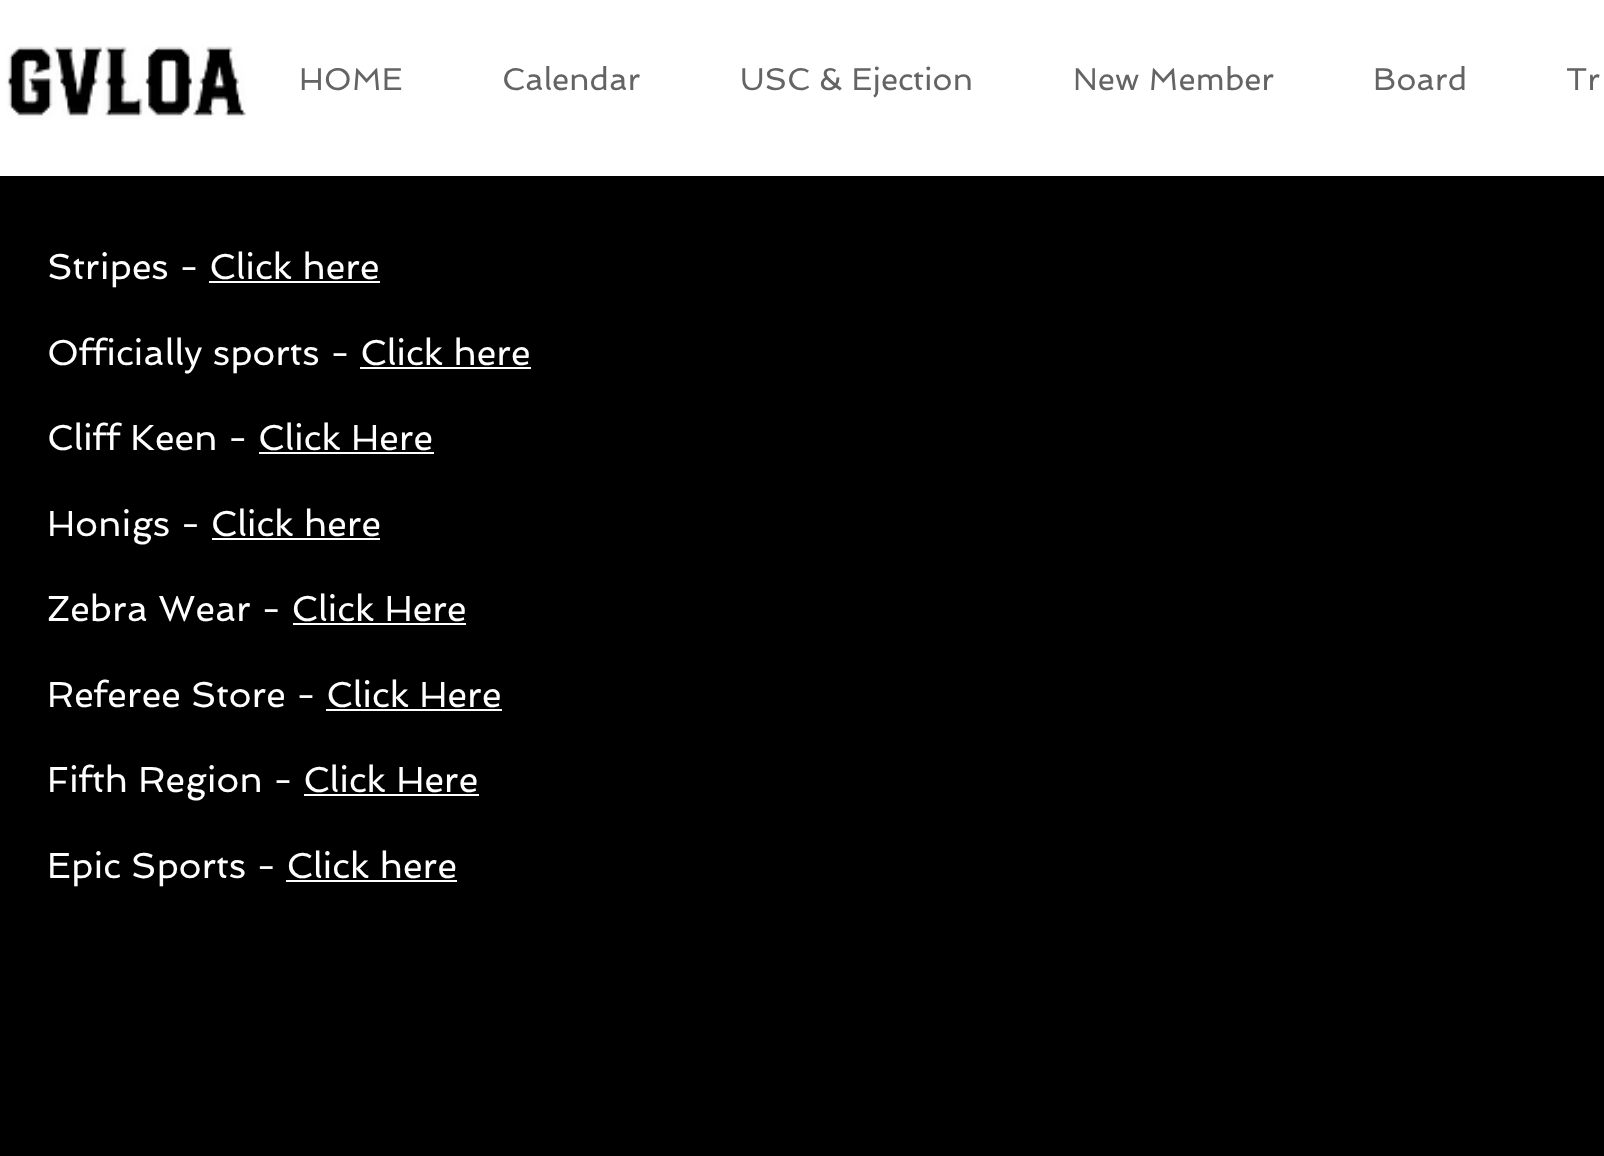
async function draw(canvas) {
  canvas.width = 1604
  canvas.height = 1156
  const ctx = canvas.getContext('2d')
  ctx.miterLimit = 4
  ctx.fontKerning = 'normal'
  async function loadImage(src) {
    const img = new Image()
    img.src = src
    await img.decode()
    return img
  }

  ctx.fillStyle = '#000'
  ctx.fillRect(0, 0, 1604, 1156)
  ctx.fillStyle = '#fff'
  ctx.fillRect(0, 0, 1604, 176)
  ctx.drawImage(await loadImage('image0.png'), 6, 46, 240, 73)
  ctx.font = '31.5px Spinnaker'
  ctx.fillStyle = '#646464'
  ctx.fillText('HOME', 299, 90)
  ctx.fillText('Calendar', 502, 90)
  ctx.fillText('USC & Ejection', 740, 90)
  ctx.fillText('New Member', 1073, 90)
  ctx.fillText('Board', 1373, 90)
  ctx.fillText('Tr', 1566, 90)
  ctx.font = '36px Spinnaker'
  ctx.fillStyle = '#fff'
  ctx.fillText('Stripes - Click here', 47, 279)
  ctx.fillRect(209, 281, 171, 2)
  ctx.fillText('Officially sports - Click here', 47, 365)
  ctx.fillRect(360, 367, 171, 2)
  ctx.fillText('Cliff Keen - Click Here', 47, 450)
  ctx.fillRect(259, 452, 175, 2)
  ctx.fillText('Honigs - Click here', 47, 536)
  ctx.fillRect(212, 538, 168, 2)
  ctx.fillText('Zebra Wear - Click Here', 47, 621)
  ctx.fillRect(293, 623, 173, 2)
  ctx.fillText('Referee Store - Click Here', 47, 707)
  ctx.fillRect(326, 709, 176, 2)
  ctx.fillText('Fifth Region - Click Here', 47, 792)
  ctx.fillRect(304, 794, 175, 2)
  ctx.fillText('Epic Sports - Click here', 47, 878)
  ctx.fillRect(286, 880, 171, 2)
}

draw(document.querySelector('canvas'))
